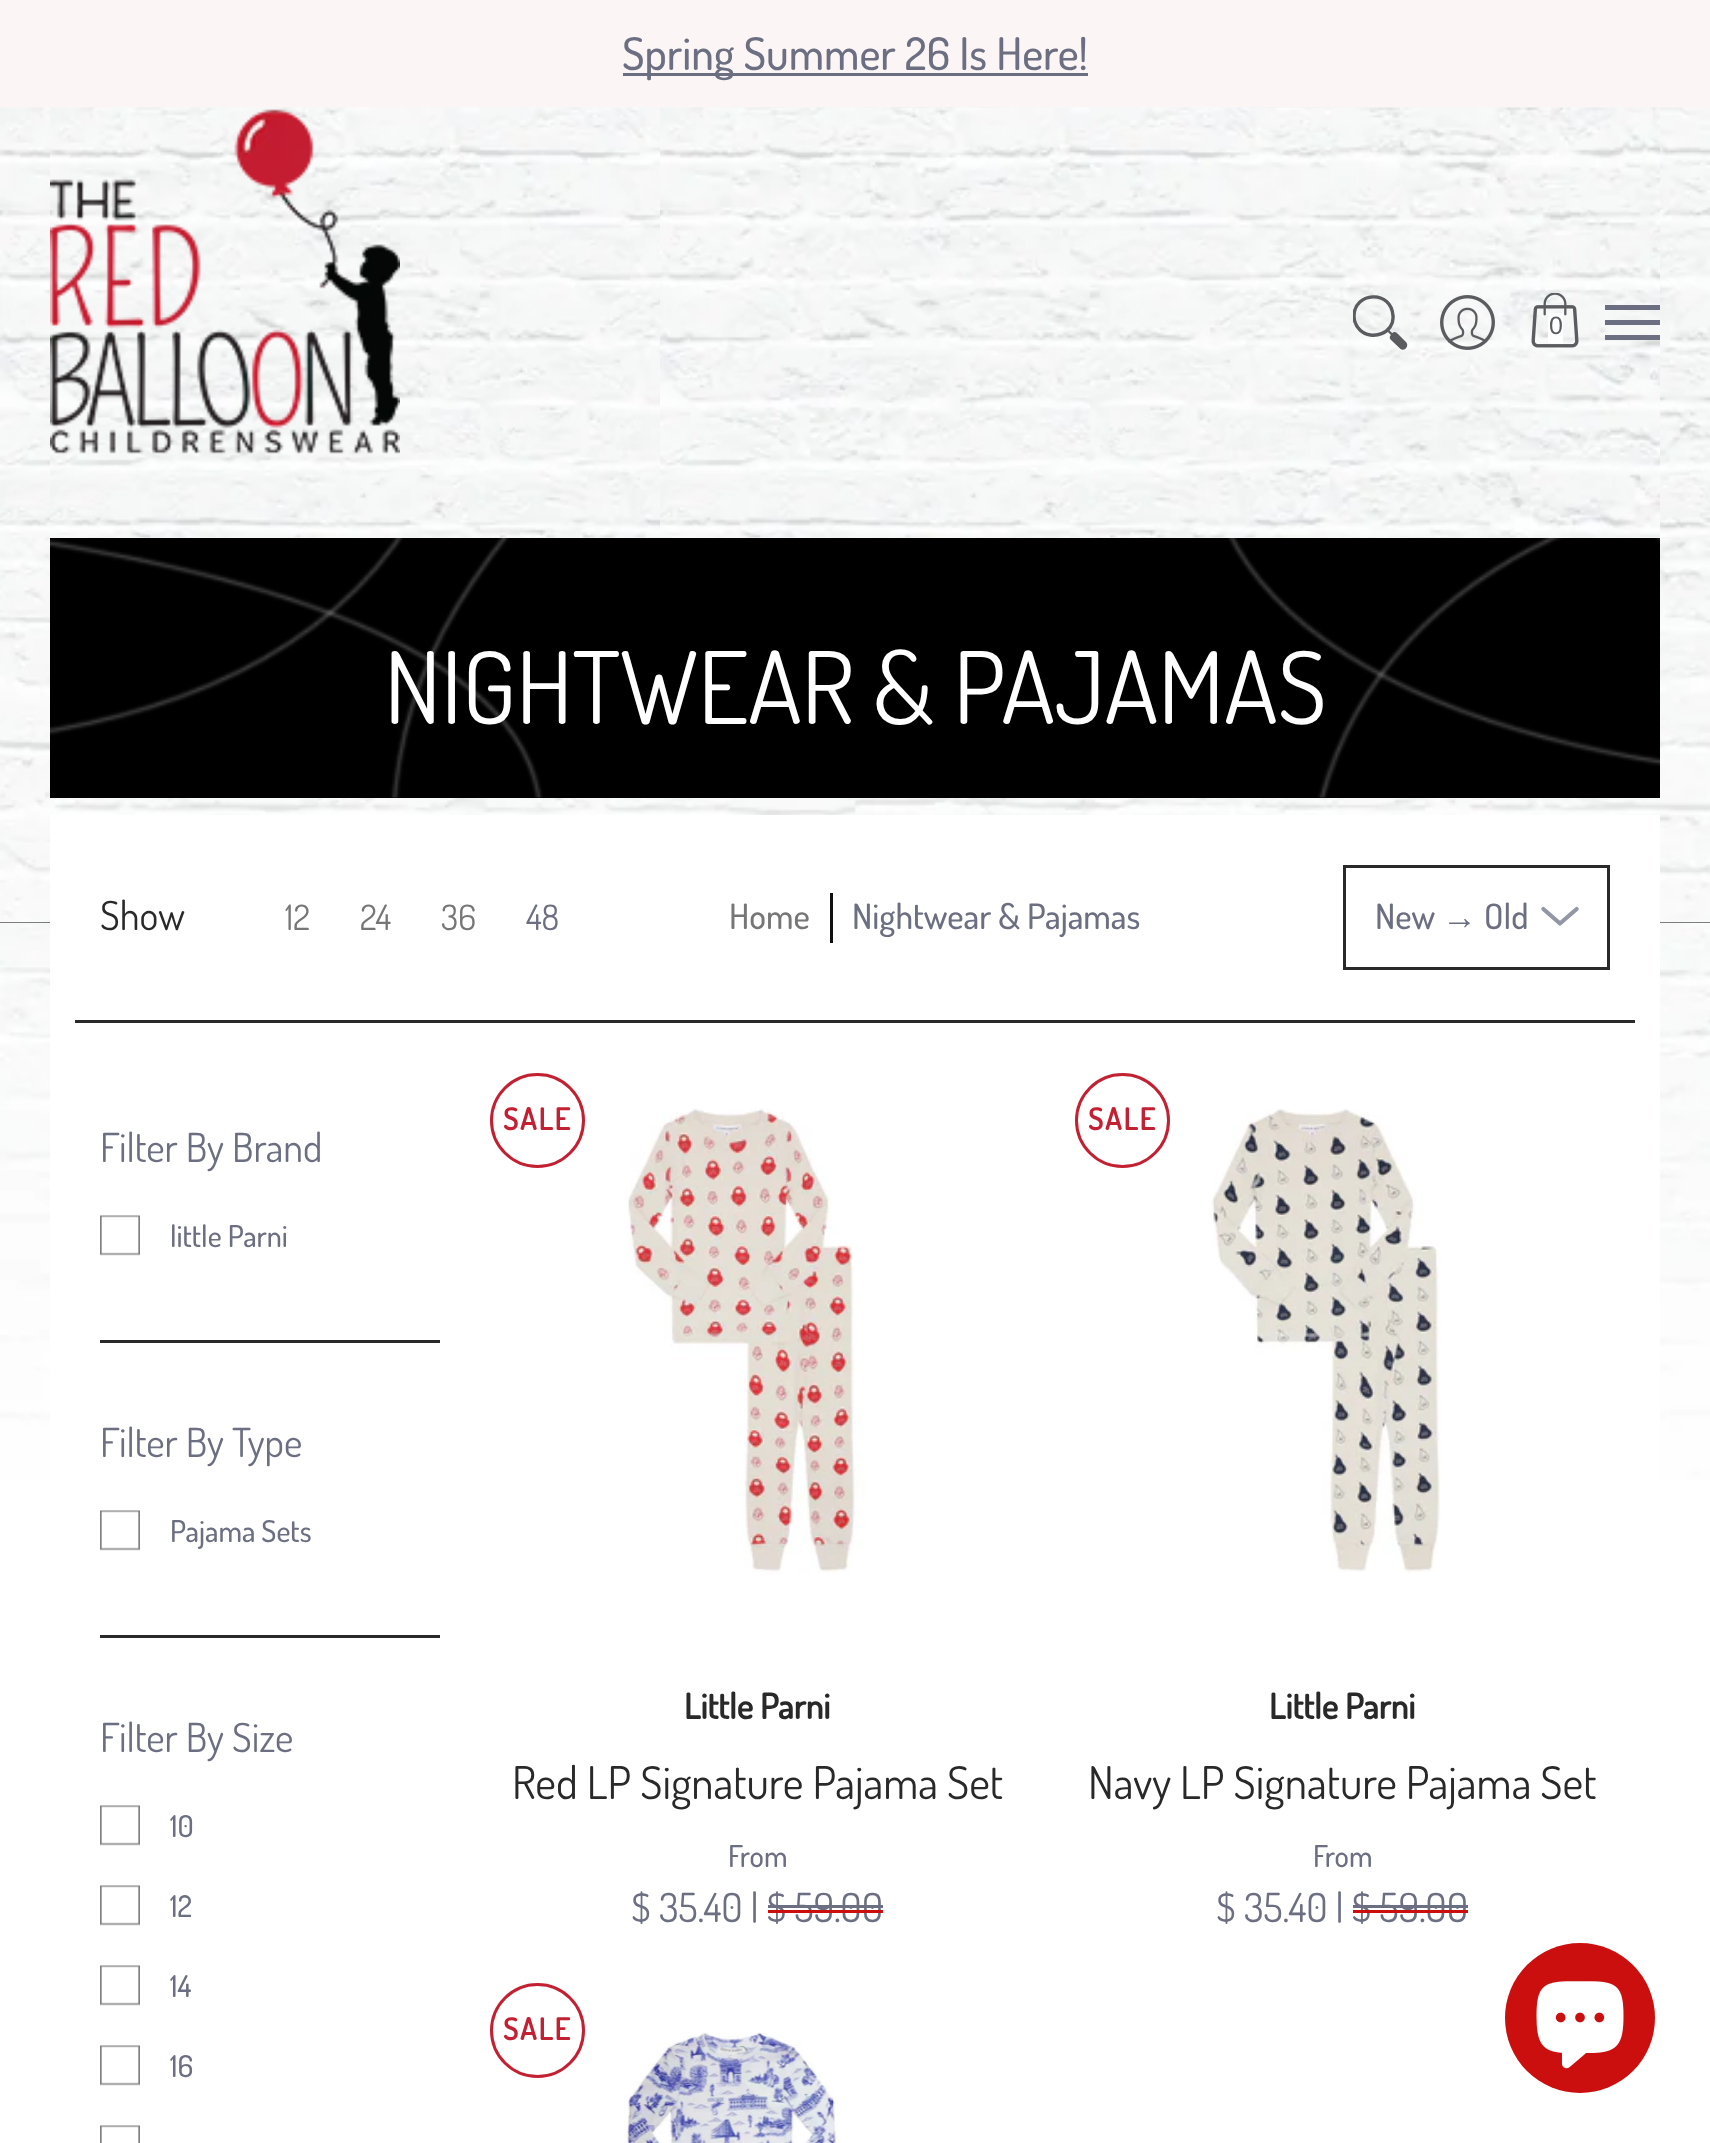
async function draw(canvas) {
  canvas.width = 1710
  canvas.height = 2143
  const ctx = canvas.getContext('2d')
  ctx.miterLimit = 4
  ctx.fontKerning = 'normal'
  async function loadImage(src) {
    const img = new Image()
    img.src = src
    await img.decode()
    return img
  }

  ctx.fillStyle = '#fff'
  ctx.fillRect(0, 0, 1710, 2143)
  ctx.drawImage(await loadImage('image0.png'), 0, 537, 1710, 943)
  ctx.fillStyle = '#fcf5f5'
  ctx.fillRect(0, 0, 1710, 108)
  ctx.fillStyle = '#6b6f81'
  ctx.fillRect(623, 73, 465, 3)
  ctx.font = '500 45px Dosis'
  ctx.fillText('Spring Summer 26 Is Here!', 622, 70)
  ctx.drawImage(await loadImage('image1.png'), 0, 107, 1710, 431)
  ctx.fillStyle = '#000'
  ctx.fillRect(0, 922, 1710, 1)
  ctx.drawImage(await loadImage('image7.png'), 0, 537, 1710, 386)
  ctx.drawImage(await loadImage('image2.png'), 50, 107, 1610, 431)
  ctx.drawImage(await loadImage('image3.png'), 50, 109, 350, 345)
  ctx.drawImage(await loadImage('image4.png'), 660, 107, 1000, 431)
  ctx.save()
  ctx.beginPath()
  ctx.rect(1353, 295, 55, 55)
  ctx.clip()
  ctx.beginPath()
  ctx.moveTo(1354, 316)
  ctx.bezierCurveTo(1354, 321.5, 1356.5, 326.5, 1360, 330)
  ctx.bezierCurveTo(1372, 341.5, 1394.5, 333, 1393, 316)
  ctx.bezierCurveTo(1391.5, 289, 1354, 292, 1354, 316)
  ctx.closePath()
  ctx.strokeStyle = '#5b5c60'
  ctx.lineWidth = 3.4
  ctx.lineCap = 'round'
  ctx.lineJoin = 'round'
  ctx.stroke()
  ctx.restore()
  ctx.beginPath()
  ctx.moveTo(1387, 329.5)
  ctx.lineTo(1392.5, 335)
  ctx.strokeStyle = '#5b5c60'
  ctx.lineWidth = 2.3
  ctx.lineJoin = 'round'
  ctx.stroke()
  ctx.fillStyle = '#5b5c60'
  ctx.beginPath()
  ctx.moveTo(1406, 342)
  ctx.bezierCurveTo(1409.5, 346, 1405, 351.5, 1400.5, 349)
  ctx.lineTo(1390.5, 339.5)
  ctx.bezierCurveTo(1389.5, 338.5, 1389.5, 336.5, 1390.5, 335.5)
  ctx.bezierCurveTo(1394, 329.5, 1396.5, 332.5, 1400, 336)
  ctx.closePath()
  ctx.fill()
  ctx.drawImage(await loadImage('image5.png'), 1440, 295, 55, 55)
  ctx.drawImage(await loadImage('image6.png'), 1531, 293, 48, 55)
  ctx.fillStyle = '#fff'
  ctx.fillRect(1548, 313, 15, 30)
  ctx.font = '25px Liberation Sans'
  ctx.fillStyle = '#5b5c60'
  ctx.fillText('0', 1549, 334)
  ctx.fillStyle = '#6b6f81'
  ctx.fillRect(1605, 305, 55, 5)
  ctx.fillRect(1605, 335, 55, 5)
  ctx.fillRect(1605, 320, 55, 5)
  ctx.fillStyle = '#000'
  ctx.fillRect(50, 538, 1610, 260)
  ctx.drawImage(await loadImage('image8.png'), 50, 538, 1610, 260)
  ctx.letterSpacing = '-0.5px'
  ctx.font = '100px Dosis'
  ctx.fillStyle = '#fff'
  ctx.fillText('NIGHTWEAR & PAJAMAS', 384, 724)
  ctx.fillRect(50, 815, 1610, 665)
  ctx.fillStyle = '#292929'
  ctx.fillRect(75, 1020, 1560, 3)
  ctx.letterSpacing = '0px'
  ctx.font = '40px Dosis'
  ctx.fillText('Show', 100, 930)
  ctx.font = '35px Dosis'
  ctx.fillStyle = '#767676'
  ctx.fillText('12', 285, 930)
  ctx.fillText('24', 360, 930)
  ctx.fillText('36', 441, 930)
  ctx.fillStyle = '#6b6f81'
  ctx.fillText('48', 526, 930)
  ctx.font = '500 35px Dosis'
  ctx.fillStyle = '#767676'
  ctx.fillText('Home', 729, 929)
  ctx.fillStyle = '#101010'
  ctx.fillRect(830, 893, 3, 50)
  ctx.fillStyle = '#6b6f81'
  ctx.fillText('Nightwear & Pajamas', 852, 929)
  ctx.drawImage(await loadImage('image9.png'), 1541, 906, 38, 20)
  ctx.strokeStyle = '#292929'
  ctx.lineWidth = 3
  ctx.lineJoin = 'miter'
  ctx.strokeRect(1344.5, 866.5, 264, 102)
  ctx.fillText('New', 1375, 929)
  ctx.font = '35px Liberation Sans'
  ctx.fillText('→', 1442, 929)
  ctx.font = '500 35px Dosis'
  ctx.fillText('Old', 1484, 929)
  ctx.fillStyle = '#292929'
  ctx.fillRect(100, 1340, 340, 3)
  ctx.font = '40px Dosis'
  ctx.fillStyle = '#6b6f81'
  ctx.fillText('Filter By Brand', 100, 1162)
  ctx.drawImage(await loadImage('image10.png'), 100, 1215, 40, 41)
  ctx.font = '500 30px Dosis'
  ctx.fillText('little Parni', 170, 1247)
  ctx.fillStyle = '#292929'
  ctx.fillRect(100, 1635, 340, 3)
  ctx.font = '40px Dosis'
  ctx.fillStyle = '#6b6f81'
  ctx.fillText('Filter By Type', 100, 1457)
  ctx.drawImage(await loadImage('image10.png'), 100, 1510, 40, 41)
  ctx.font = '500 30px Dosis'
  ctx.fillText('Pajama Sets', 170, 1542)
  ctx.font = '40px Dosis'
  ctx.fillText('Filter By Size', 100, 1752)
  ctx.drawImage(await loadImage('image10.png'), 100, 1805, 40, 41)
  ctx.font = '500 30px Dosis'
  ctx.fillText('10', 170, 1837)
  ctx.drawImage(await loadImage('image10.png'), 100, 1885, 40, 41)
  ctx.fillText('12', 170, 1917)
  ctx.drawImage(await loadImage('image10.png'), 100, 1965, 40, 41)
  ctx.fillText('14', 170, 1997)
  ctx.drawImage(await loadImage('image10.png'), 100, 2045, 40, 41)
  ctx.fillText('16', 170, 2077)
  ctx.drawImage(await loadImage('image11.png'), 100, 2125, 40, 18)
  ctx.beginPath()
  ctx.arc(537.5, 1120.5, 46, 0, 2 * Math.PI)
  ctx.strokeStyle = '#c32032'
  ctx.stroke()
  ctx.letterSpacing = '2px'
  ctx.font = 'bold 30px Dosis'
  ctx.fillStyle = '#c32032'
  ctx.fillText('SALE', 503, 1130)
  ctx.drawImage(await loadImage('image12.png'), 625, 1108, 240, 466)
  ctx.letterSpacing = '0px'
  ctx.font = 'bold 35px Dosis'
  ctx.fillStyle = '#292929'
  ctx.fillText('Little Parni', 684, 1719)
  ctx.font = '45px Dosis'
  ctx.fillText('Red LP Signature Pajama Set', 512, 1799)
  ctx.font = '500 30px Dosis'
  ctx.fillStyle = '#6b6f81'
  ctx.fillText('From', 728, 1867)
  ctx.font = '40px Dosis'
  ctx.fillText('$ 35.40 | $ 59.00', 631, 1922)
  ctx.fillRect(768, 1905, 115, 3)
  ctx.fillStyle = '#cb0f0f'
  ctx.fillRect(768, 1910, 115, 3)
  ctx.beginPath()
  ctx.arc(1122.5, 1120.5, 46, 0, 2 * Math.PI)
  ctx.stroke()
  ctx.letterSpacing = '2px'
  ctx.font = 'bold 30px Dosis'
  ctx.fillStyle = '#c32032'
  ctx.fillText('SALE', 1088, 1130)
  ctx.drawImage(await loadImage('image13.png'), 1211, 1109, 231, 464)
  ctx.letterSpacing = '0px'
  ctx.font = 'bold 35px Dosis'
  ctx.fillStyle = '#292929'
  ctx.fillText('Little Parni', 1269, 1719)
  ctx.font = '45px Dosis'
  ctx.fillText('Navy LP Signature Pajama Set', 1088, 1799)
  ctx.font = '500 30px Dosis'
  ctx.fillStyle = '#6b6f81'
  ctx.fillText('From', 1313, 1867)
  ctx.font = '40px Dosis'
  ctx.fillText('$ 35.40 | $ 59.00', 1216, 1922)
  ctx.fillRect(1353, 1905, 115, 3)
  ctx.fillStyle = '#cb0f0f'
  ctx.fillRect(1353, 1910, 115, 3)
  ctx.beginPath()
  ctx.arc(537.5, 2030.5, 46, 0, 2 * Math.PI)
  ctx.stroke()
  ctx.letterSpacing = '2px'
  ctx.font = 'bold 30px Dosis'
  ctx.fillStyle = '#c32032'
  ctx.fillText('SALE', 503, 2040)
  ctx.drawImage(await loadImage('image14.png'), 624, 2031, 215, 112)
  ctx.fillStyle = '#cb0f0f'
  ctx.beginPath()
  ctx.arc(1580, 2018, 75, 0, 2 * Math.PI)
  ctx.fill()
  ctx.drawImage(await loadImage('image15.png'), 1536, 1981, 88, 88)
}

draw(document.querySelector('canvas'))
